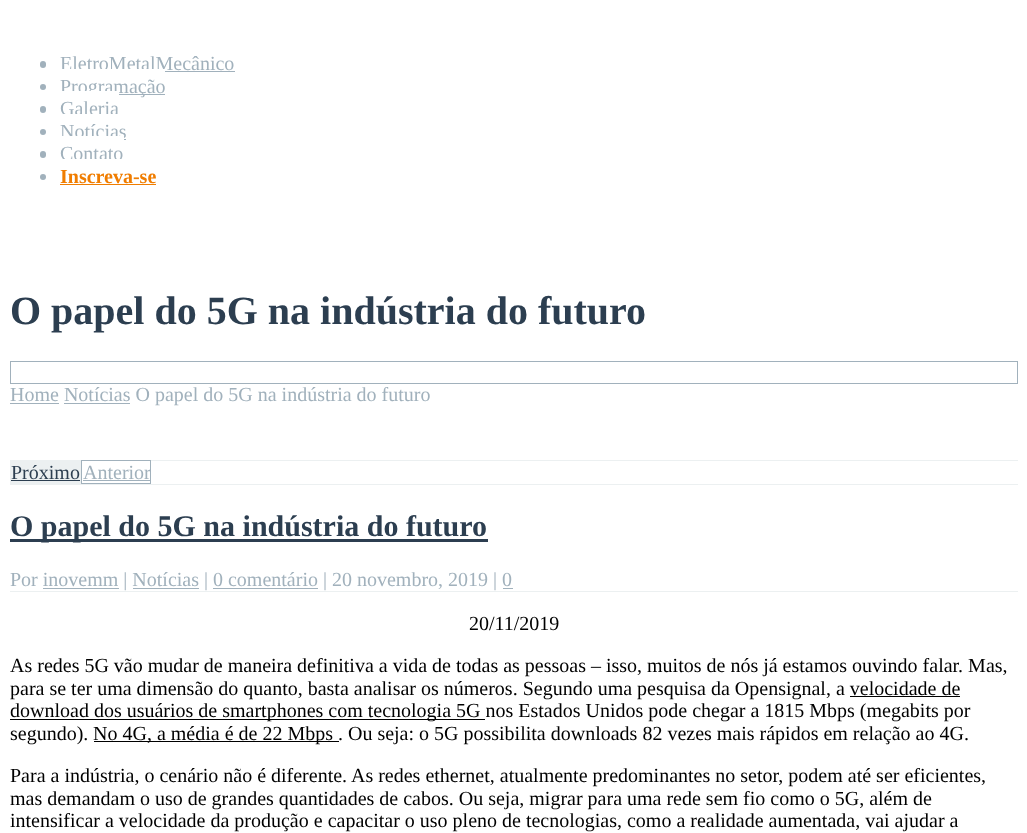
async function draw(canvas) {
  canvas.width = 1027
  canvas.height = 833
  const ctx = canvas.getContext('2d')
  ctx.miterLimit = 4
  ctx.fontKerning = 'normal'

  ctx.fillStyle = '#fff'
  ctx.fillRect(0, 0, 1027, 833)
  ctx.fillStyle = '#a1b1bc'
  ctx.beginPath()
  ctx.roundRect(40, 61, 6, 7, 3)
  ctx.fill()
  ctx.font = '20px Liberation Serif'
  ctx.fillText('EletroMetalMecânico', 60, 70)
  ctx.fillRect(165, 71, 70, 1)
  ctx.beginPath()
  ctx.arc(43, 87, 3, 0, 2 * Math.PI)
  ctx.fill()
  ctx.fillRect(119, 94, 46, 1)
  ctx.fillText('Programação', 60, 93)
  ctx.fillStyle = '#fff'
  ctx.fillRect(60, 69, 105, 2)
  ctx.fillStyle = '#a1b1bc'
  ctx.beginPath()
  ctx.roundRect(40, 106, 6, 7, 3)
  ctx.fill()
  ctx.fillText('Galeria', 60, 115)
  ctx.fillStyle = '#fff'
  ctx.fillRect(60, 91, 59, 7)
  ctx.fillStyle = '#a1b1bc'
  ctx.beginPath()
  ctx.arc(43, 132, 3, 0, 2 * Math.PI)
  ctx.fill()
  ctx.fillText('Notícias', 60, 138)
  ctx.fillStyle = '#fff'
  ctx.fillRect(60, 114, 66, 2)
  ctx.fillStyle = '#a1b1bc'
  ctx.fillRect(124, 139, 2, 1)
  ctx.beginPath()
  ctx.roundRect(40, 151, 6, 7, 3)
  ctx.fill()
  ctx.fillText('Contato', 60, 160)
  ctx.fillStyle = '#fff'
  ctx.fillRect(60, 136, 64, 3)
  ctx.fillStyle = '#a1b1bc'
  ctx.beginPath()
  ctx.arc(43, 177, 3, 0, 2 * Math.PI)
  ctx.fill()
  ctx.font = 'bold 20px Liberation Serif'
  ctx.fillStyle = '#f07d00'
  ctx.fillText('Inscreva-se', 60, 183)
  ctx.fillStyle = '#fff'
  ctx.fillRect(60, 159, 62, 2)
  ctx.fillStyle = '#f07d00'
  ctx.fillRect(60, 184, 96, 1)
  ctx.fillStyle = '#ecf0f1'
  ctx.fillRect(151, 460, 867, 1)
  ctx.font = 'bold 40px Liberation Serif'
  ctx.fillStyle = '#2c3e50'
  ctx.fillText('O papel do 5G na indústria do futuro', 10, 324)
  ctx.strokeStyle = '#a1b1bc'
  ctx.strokeRect(10.5, 361.5, 1007, 22)
  ctx.fillStyle = '#a1b1bc'
  ctx.fillRect(10, 403, 49, 1)
  ctx.font = '20px Liberation Serif'
  ctx.fillText('Home Notícias O papel do 5G na indústria do futuro', 10, 401)
  ctx.fillRect(64, 403, 66, 1)
  ctx.fillStyle = '#ecf0f1'
  ctx.fillRect(10, 484, 1008, 1)
  ctx.fillRect(10, 460, 71, 24)
  ctx.fillStyle = '#2c3e50'
  ctx.fillText('Próximo', 11, 479)
  ctx.fillRect(11, 480, 69, 1)
  ctx.strokeRect(81.5, 460.5, 69, 23)
  ctx.fillStyle = '#a1b1bc'
  ctx.fillText('Anterior', 83, 479)
  ctx.fillRect(83, 480, 67, 1)
  ctx.fillStyle = '#2c3e50'
  ctx.fillRect(10, 539, 478, 3)
  ctx.font = 'bold 30px Liberation Serif'
  ctx.fillText('O papel do 5G na indústria do futuro', 10, 536)
  ctx.fillStyle = '#ecf0f1'
  ctx.fillRect(10, 591, 1008, 1)
  ctx.font = '20px Liberation Serif'
  ctx.fillStyle = '#a1b1bc'
  ctx.fillText('Por inovemm | Notícias | 0 comentário | 20 novembro, 2019 | 0', 10, 586)
  ctx.fillRect(43, 588, 76, 1)
  ctx.fillRect(133, 588, 66, 1)
  ctx.fillRect(213, 588, 105, 1)
  ctx.fillRect(503, 588, 10, 1)
  ctx.fillStyle = '#000'
  ctx.fillText('20/11/2019', 469, 630)
  ctx.fillText('As redes 5G vão mudar de maneira definitiva a vida de todas as pessoas – isso, muitos de nós já estamos ouvindo falar. Mas,', 10, 672)
  ctx.fillText('para se ter uma dimensão do quanto, basta analisar os números. Segundo uma pesquisa da Opensignal, a velocidade de', 10, 695)
  ctx.fillRect(850, 696, 110, 1)
  ctx.fillRect(10, 719, 475, 1)
  ctx.fillText('download dos usuários de smartphones com tecnologia 5G nos Estados Unidos pode chegar a 1815 Mbps (megabits por', 10, 717)
  ctx.fillText('segundo).', 10, 740)
  ctx.fillRect(94, 741, 245, 1)
  ctx.fillText('No 4G, a média é de 22 Mbps . Ou seja: o 5G possibilita downloads 82 vezes mais rápidos em relação ao 4G.', 93, 740)
  ctx.fillText('Para a indústria, o cenário não é diferente. As redes ethernet, atualmente predominantes no setor, podem até ser eficientes,', 10, 782)
  ctx.fillText('mas demandam o uso de grandes quantidades de cabos. Ou seja, migrar para uma rede sem fio como o 5G, além de', 10, 805)
  ctx.fillText('intensificar a velocidade da produção e capacitar o uso pleno de tecnologias, como a realidade aumentada, vai ajudar a', 10, 827)
}

draw(document.querySelector('canvas'))
